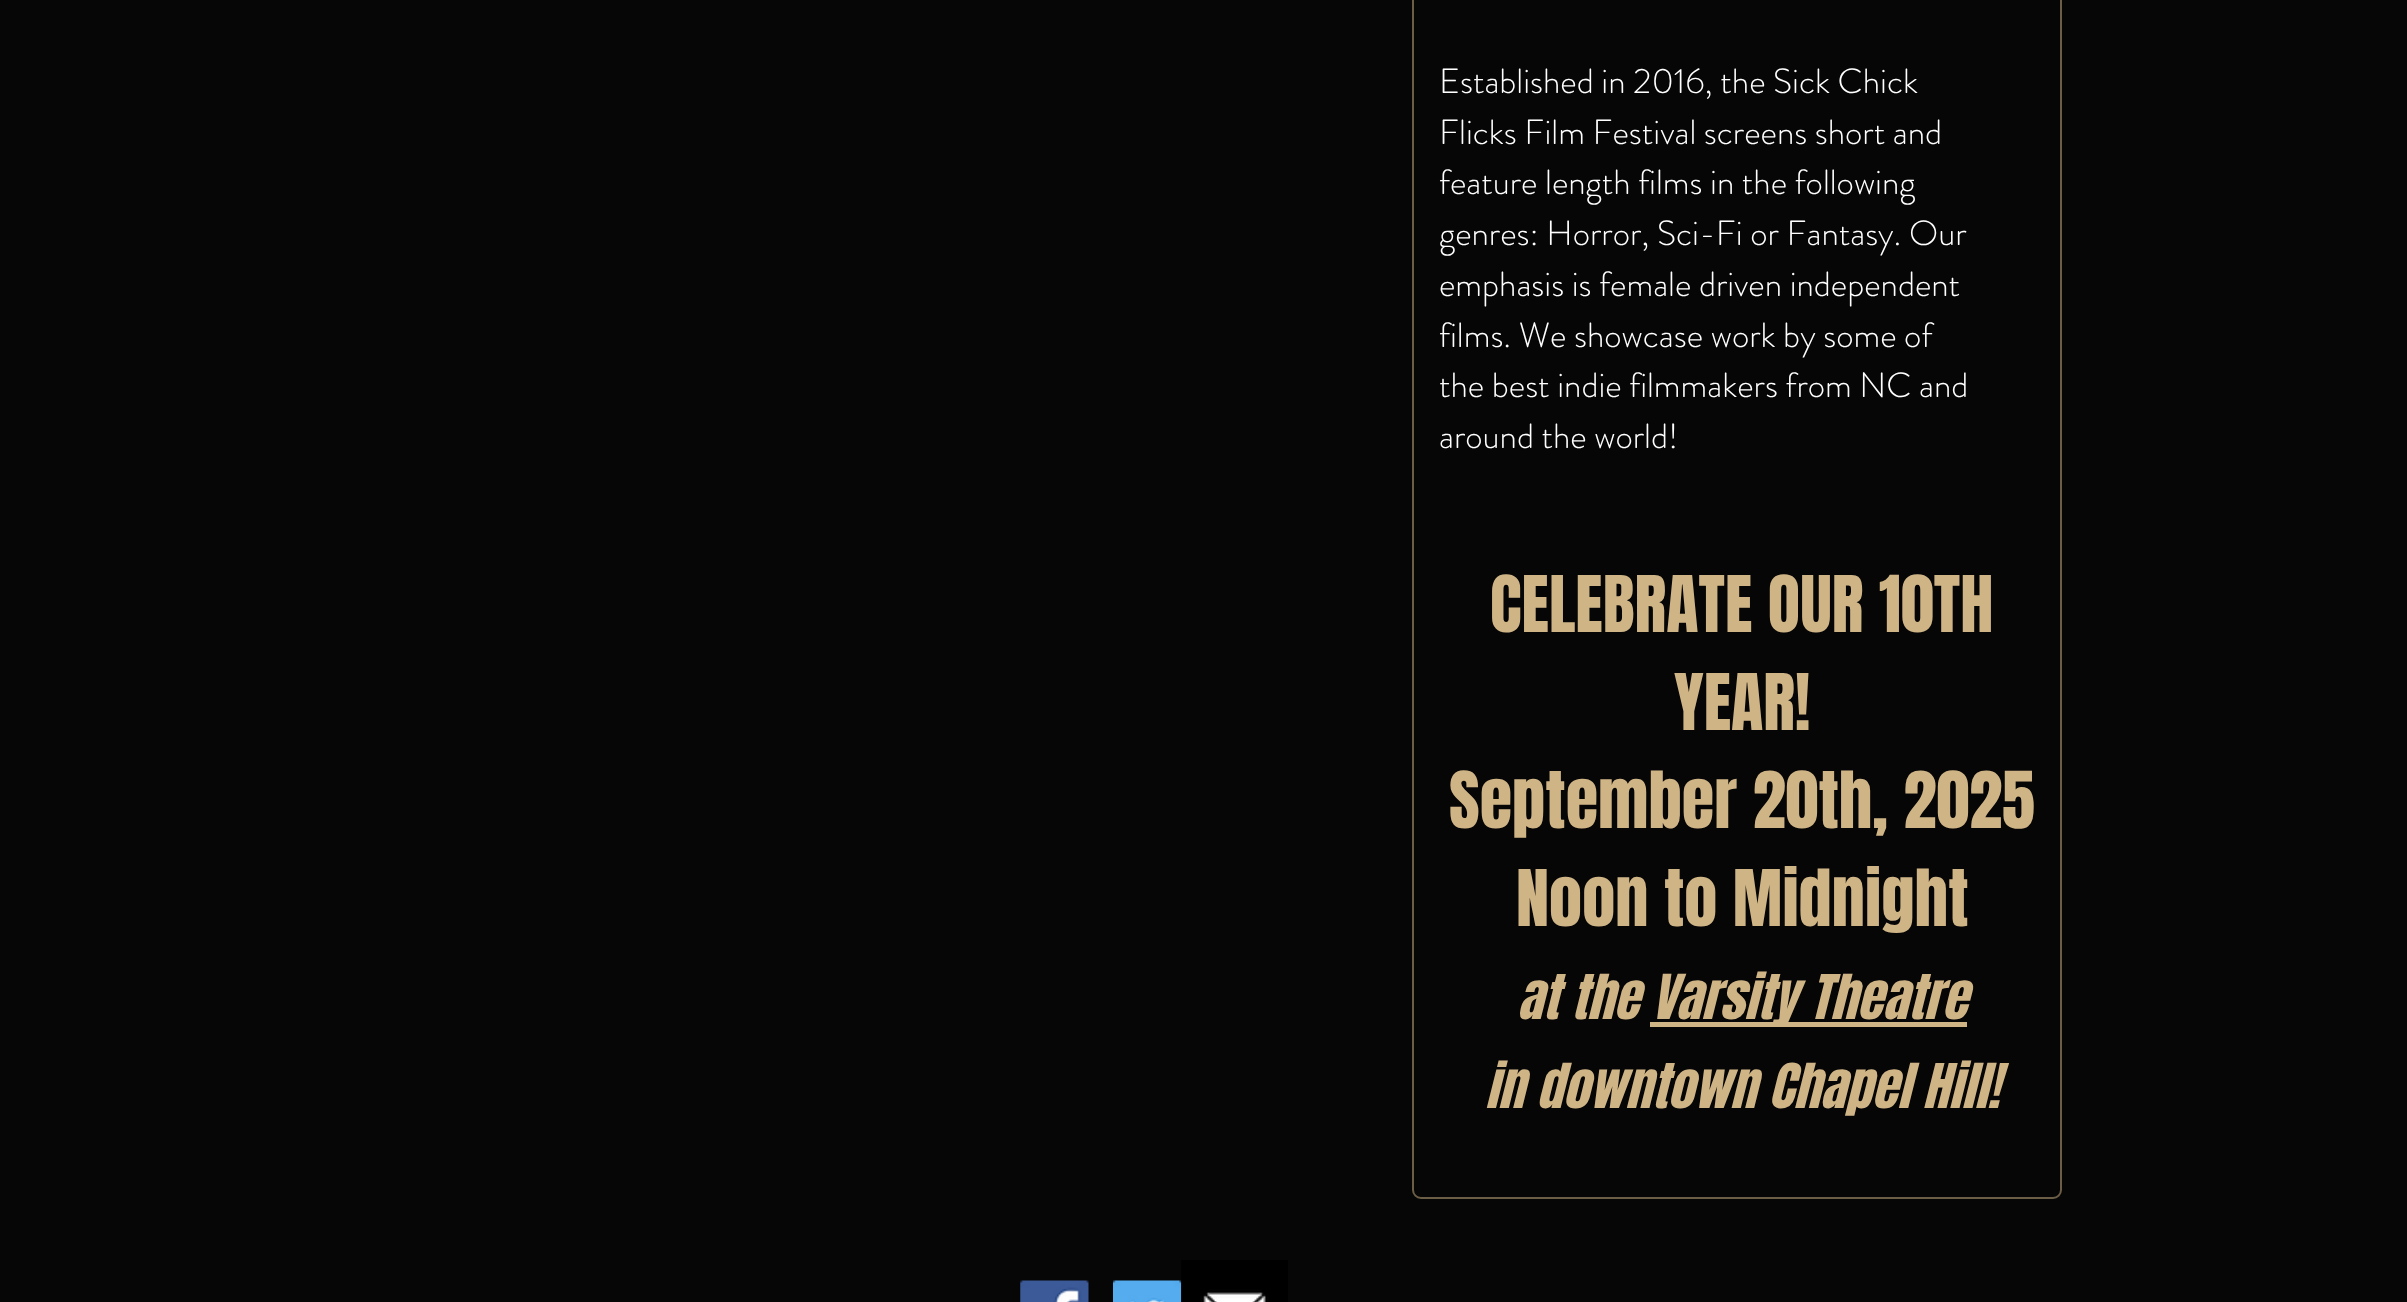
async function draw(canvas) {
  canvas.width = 2407
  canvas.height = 1302
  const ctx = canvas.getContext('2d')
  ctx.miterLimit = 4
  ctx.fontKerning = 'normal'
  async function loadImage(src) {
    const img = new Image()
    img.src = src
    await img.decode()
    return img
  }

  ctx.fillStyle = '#070606'
  ctx.fillRect(0, 0, 2407, 1302)
  ctx.beginPath()
  ctx.roundRect(1413, -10, 648, 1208, 8)
  ctx.strokeStyle = '#6b5d46'
  ctx.lineWidth = 2
  ctx.stroke()
  ctx.font = '300 35px "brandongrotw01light"'
  ctx.fillStyle = '#fff'
  ctx.fillText('Established in 2016, the Sick Chick', 1439, 93)
  ctx.fillText('Flicks Film Festival screens short and', 1439, 144)
  ctx.fillText('feature length films in the following', 1439, 194)
  ctx.fillText('genres: Horror, Sci-Fi or Fantasy. Our', 1439, 245)
  ctx.fillText('emphasis is female driven independent', 1439, 296)
  ctx.fillText('films. We showcase work by some of', 1439, 347)
  ctx.fillText('the best indie filmmakers from NC and', 1439, 397)
  ctx.fillText('around the world!', 1439, 448)
  ctx.font = '66.5px Anton'
  ctx.fillStyle = '#cfb486'
  ctx.fillText('CELEBRATE OUR 10TH', 1490, 632)
  ctx.fillText('YEAR!', 1674, 730)
  ctx.fillText('September 20th, 2025', 1449, 828)
  ctx.fillText('Noon to Midnight', 1516, 926)
  ctx.font = 'italic 52.5px Anton'
  ctx.fillText('at the', 1517, 1019)
  ctx.fillRect(1650, 1022, 317, 5)
  ctx.fillText('Varsity Theatre', 1651, 1019)
  ctx.fillText('in downtown Chapel Hill!', 1485, 1108)
  ctx.drawImage(await loadImage('image0.png'), 1020, 1280, 69, 22)
  ctx.drawImage(await loadImage('image1.png'), 1113, 1280, 69, 22)
  ctx.drawImage(await loadImage('image2.png'), 1181, 1260, 107, 42)
}

draw(document.querySelector('canvas'))
